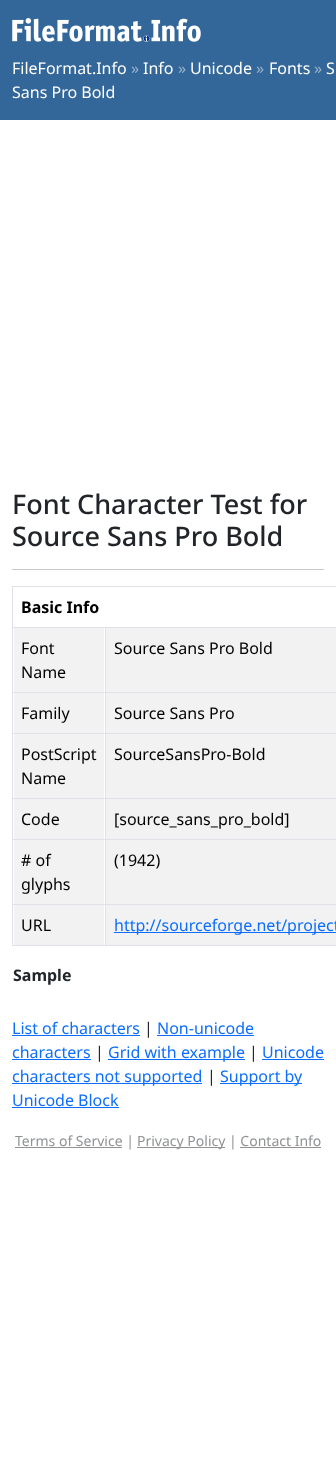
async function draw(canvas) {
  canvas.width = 336
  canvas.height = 1461
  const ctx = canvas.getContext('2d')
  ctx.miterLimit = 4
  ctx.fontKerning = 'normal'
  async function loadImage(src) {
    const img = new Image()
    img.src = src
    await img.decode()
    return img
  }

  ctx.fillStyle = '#fff'
  ctx.fillRect(0, 0, 336, 1461)
  ctx.fillStyle = '#369'
  ctx.fillRect(0, 0, 336, 120)
  ctx.drawImage(await loadImage('image0.png'), 12, 18, 189, 24)
  ctx.font = '16px Noto Sans'
  ctx.fillStyle = '#fff'
  ctx.fillText('FileFormat.Info', 12, 74)
  ctx.fillStyle = '#99b3cc'
  ctx.fillText('»', 131, 74)
  ctx.fillStyle = '#fff'
  ctx.fillText('Info', 143, 74)
  ctx.fillStyle = '#99b3cc'
  ctx.fillText('»', 178, 74)
  ctx.fillStyle = '#fff'
  ctx.fillText('Unicode', 190, 74)
  ctx.fillStyle = '#99b3cc'
  ctx.fillText('»', 256, 74)
  ctx.fillStyle = '#fff'
  ctx.fillText('Fonts', 269, 74)
  ctx.fillStyle = '#99b3cc'
  ctx.fillText('»', 314, 74)
  ctx.fillStyle = '#fff'
  ctx.fillText('S', 326, 74)
  ctx.fillText('Sans Pro Bold', 12, 98)
  ctx.font = '500 27px Noto Sans'
  ctx.fillStyle = '#212529'
  ctx.fillText('Font Character Test for', 12, 514)
  ctx.fillText('Source Sans Pro Bold', 12, 546)
  ctx.fillStyle = '#c8c9ca'
  ctx.fillRect(12, 569, 312, 1)
  ctx.fillStyle = '#dee2e6'
  ctx.fillRect(12, 586, 324, 1)
  ctx.font = 'bold 16px Noto Sans'
  ctx.fillStyle = '#000'
  ctx.fillText('Basic Info', 21, 613)
  ctx.fillStyle = '#dee2e6'
  ctx.fillRect(12, 627, 324, 1)
  ctx.fillStyle = '#f2f2f2'
  ctx.fillRect(14, 628, 90, 64)
  ctx.font = '16px Noto Sans'
  ctx.fillStyle = '#000'
  ctx.fillText('Font', 21, 654)
  ctx.fillText('Name', 21, 678)
  ctx.fillStyle = '#f2f2f2'
  ctx.fillRect(106, 628, 230, 64)
  ctx.fillStyle = '#000'
  ctx.fillText('Source Sans Pro Bold', 114, 654)
  ctx.fillStyle = '#dee2e6'
  ctx.fillRect(12, 692, 324, 1)
  ctx.fillStyle = '#f2f2f2'
  ctx.fillRect(14, 693, 90, 40)
  ctx.fillStyle = '#000'
  ctx.fillText('Family', 21, 719)
  ctx.fillStyle = '#f2f2f2'
  ctx.fillRect(106, 693, 230, 40)
  ctx.fillStyle = '#000'
  ctx.fillText('Source Sans Pro', 114, 719)
  ctx.fillStyle = '#dee2e6'
  ctx.fillRect(12, 733, 324, 1)
  ctx.fillStyle = '#f2f2f2'
  ctx.fillRect(14, 734, 90, 64)
  ctx.fillStyle = '#000'
  ctx.fillText('PostScript', 21, 760)
  ctx.fillText('Name', 21, 784)
  ctx.fillStyle = '#f2f2f2'
  ctx.fillRect(106, 734, 230, 64)
  ctx.fillStyle = '#000'
  ctx.fillText('SourceSansPro-Bold', 114, 760)
  ctx.fillStyle = '#dee2e6'
  ctx.fillRect(12, 798, 324, 1)
  ctx.fillStyle = '#f2f2f2'
  ctx.fillRect(14, 799, 90, 40)
  ctx.fillStyle = '#000'
  ctx.fillText('Code', 21, 825)
  ctx.fillStyle = '#f2f2f2'
  ctx.fillRect(106, 799, 230, 40)
  ctx.fillStyle = '#000'
  ctx.fillText('[source_sans_pro_bold]', 114, 825)
  ctx.fillStyle = '#dee2e6'
  ctx.fillRect(12, 839, 324, 1)
  ctx.fillStyle = '#f2f2f2'
  ctx.fillRect(14, 840, 90, 64)
  ctx.fillStyle = '#000'
  ctx.fillText('# of', 21, 866)
  ctx.fillText('glyphs', 21, 890)
  ctx.fillStyle = '#f2f2f2'
  ctx.fillRect(106, 840, 230, 64)
  ctx.fillStyle = '#000'
  ctx.fillText('(1942)', 114, 866)
  ctx.fillStyle = '#dee2e6'
  ctx.fillRect(12, 904, 324, 1)
  ctx.fillStyle = '#f2f2f2'
  ctx.fillRect(14, 905, 90, 40)
  ctx.fillStyle = '#dee2e6'
  ctx.fillRect(12, 945, 324, 1)
  ctx.fillRect(12, 586, 1, 360)
  ctx.fillStyle = '#000'
  ctx.fillText('URL', 21, 931)
  ctx.fillStyle = '#f2f2f2'
  ctx.fillRect(106, 905, 230, 40)
  ctx.fillStyle = '#dee2e6'
  ctx.fillRect(105, 627, 1, 319)
  ctx.fillStyle = '#0d6efd'
  ctx.fillRect(114, 932, 222, 1)
  ctx.fillText('http://sourceforge.net/project', 114, 931)
  ctx.font = 'bold 16px Noto Sans'
  ctx.fillStyle = '#212529'
  ctx.fillText('Sample', 13, 981)
  ctx.font = '16px Noto Sans'
  ctx.fillStyle = '#0d6efd'
  ctx.fillText('List of characters', 12, 1034)
  ctx.fillRect(12, 1035, 128, 1)
  ctx.fillStyle = '#212529'
  ctx.fillText('|', 144, 1034)
  ctx.fillStyle = '#0d6efd'
  ctx.fillText('Non-unicode', 157, 1034)
  ctx.fillRect(157, 1035, 97, 1)
  ctx.fillText('characters', 12, 1058)
  ctx.fillRect(12, 1059, 79, 1)
  ctx.fillStyle = '#212529'
  ctx.fillText('|', 95, 1058)
  ctx.fillStyle = '#0d6efd'
  ctx.fillRect(108, 1059, 137, 1)
  ctx.fillText('Grid with example', 108, 1058)
  ctx.fillStyle = '#212529'
  ctx.fillText('|', 249, 1058)
  ctx.fillStyle = '#0d6efd'
  ctx.fillText('Unicode', 262, 1058)
  ctx.fillRect(262, 1059, 62, 1)
  ctx.fillRect(12, 1083, 190, 1)
  ctx.fillText('characters not supported', 12, 1082)
  ctx.fillStyle = '#212529'
  ctx.fillText('|', 207, 1082)
  ctx.fillStyle = '#0d6efd'
  ctx.fillRect(220, 1083, 82, 1)
  ctx.fillText('Support by', 220, 1082)
  ctx.fillText('Unicode Block', 12, 1106)
  ctx.fillRect(12, 1107, 107, 1)
  ctx.fillStyle = '#909294'
  ctx.fillRect(15, 1147, 107, 1)
  ctx.font = '14px Noto Sans'
  ctx.fillText('Terms of Service |', 15, 1146)
  ctx.fillRect(137, 1147, 88, 1)
  ctx.fillText('Privacy Policy', 137, 1146)
  ctx.fillText('| Contact Info', 229, 1146)
  ctx.fillRect(240, 1147, 81, 1)
}

draw(document.querySelector('canvas'))
